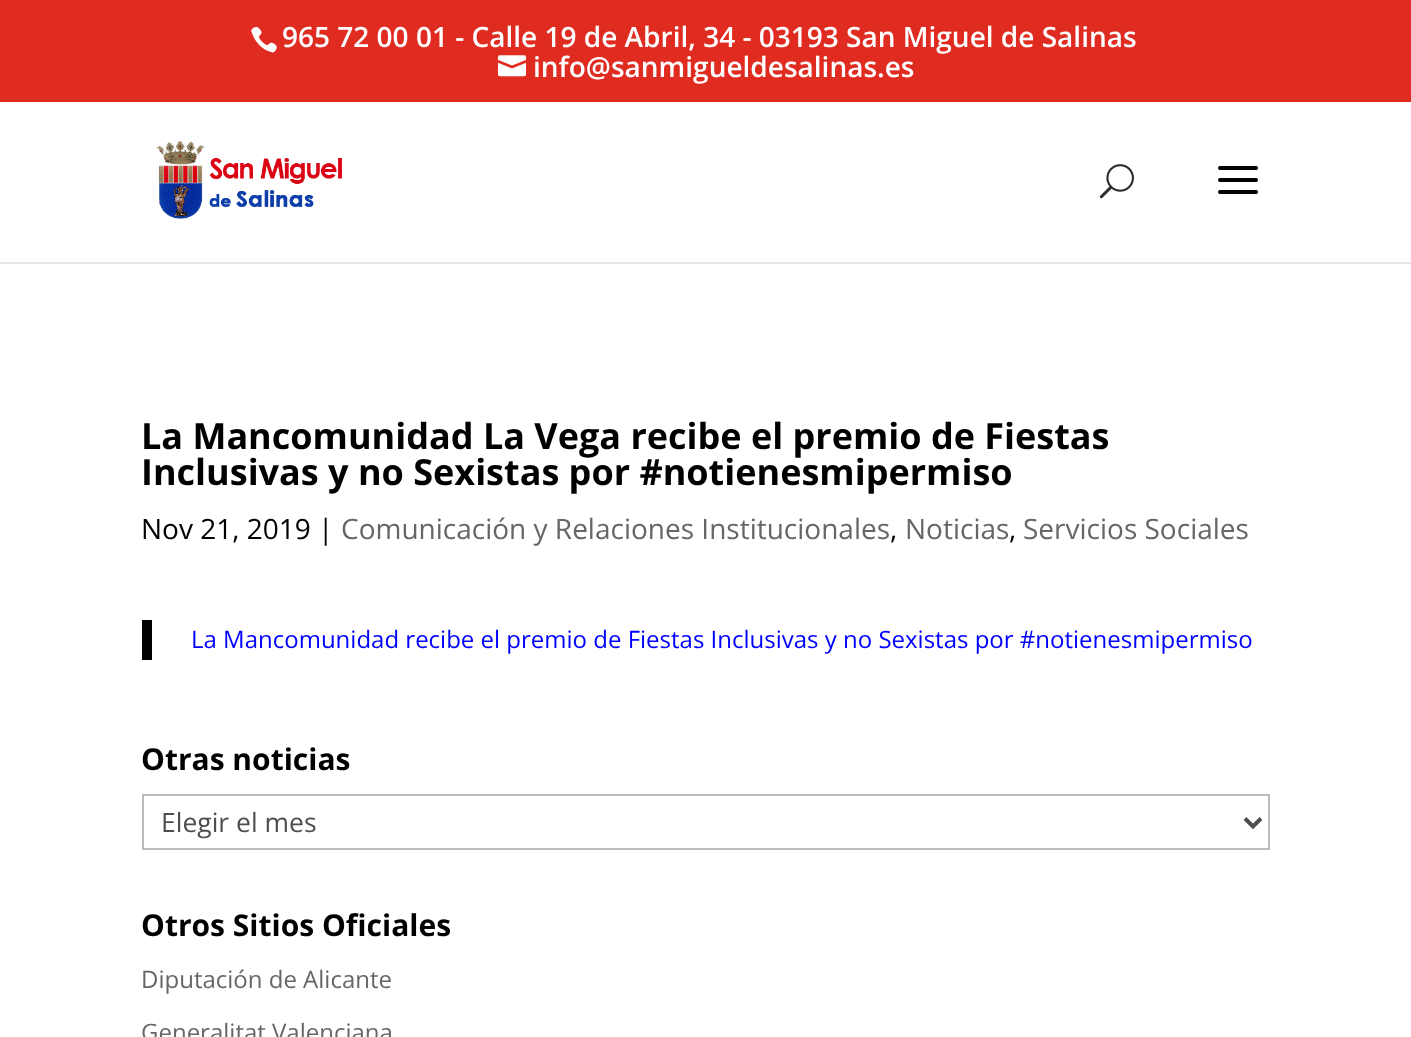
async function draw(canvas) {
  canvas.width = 1411
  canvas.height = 1037
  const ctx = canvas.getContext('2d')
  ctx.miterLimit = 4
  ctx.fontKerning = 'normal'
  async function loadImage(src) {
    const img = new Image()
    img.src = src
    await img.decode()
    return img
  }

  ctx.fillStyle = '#fff'
  ctx.fillRect(0, 0, 1411, 1037)
  ctx.fillStyle = '#e02b20'
  ctx.fillRect(0, 0, 1411, 102)
  ctx.drawImage(await loadImage('image0.png'), 251, 26, 26, 27)
  ctx.font = '600 28px Open Sans'
  ctx.fillStyle = '#fff'
  ctx.fillText('965 72 00 01 - Calle 19 de Abril, 34 - 03193 San Miguel de Salinas', 282, 47)
  ctx.drawImage(await loadImage('image1.png'), 498, 55, 28, 22)
  ctx.fillText('info@sanmigueldesalinas.es', 533, 77)
  ctx.fillStyle = '#e6e6e6'
  ctx.fillRect(0, 262, 1411, 2)
  ctx.drawImage(await loadImage('image2.png'), 156, 141, 186, 78)
  ctx.drawImage(await loadImage('image3.png'), 1099, 164, 35, 35)
  ctx.drawImage(await loadImage('image4.png'), 1218, 166, 40, 28)
  ctx.font = 'bold 36px Open Sans'
  ctx.fillStyle = '#000'
  ctx.fillText('La Mancomunidad La Vega recibe el premio de Fiestas', 141, 449)
  ctx.fillText('Inclusivas y no Sexistas por #notienesmipermiso', 141, 485)
  ctx.font = '28px Open Sans'
  ctx.fillText('Nov 21, 2019 |', 141, 539)
  ctx.fillStyle = '#666'
  ctx.fillText('Comunicación y Relaciones Institucionales', 341, 539)
  ctx.fillStyle = '#000'
  ctx.fillText(',', 890, 539)
  ctx.fillStyle = '#666'
  ctx.fillText('Noticias', 905, 539)
  ctx.fillStyle = '#000'
  ctx.fillText(',', 1009, 539)
  ctx.fillStyle = '#666'
  ctx.fillText('Servicios Sociales', 1023, 539)
  ctx.fillStyle = '#000'
  ctx.fillRect(142, 620, 10, 40)
  ctx.font = '24px Open Sans'
  ctx.fillStyle = '#00f'
  ctx.fillText('La Mancomunidad recibe el premio de Fiestas Inclusivas y no Sexistas por #notienesmipermiso', 191, 648)
  ctx.font = 'bold 30px Open Sans'
  ctx.fillStyle = '#000'
  ctx.fillText('Otras noticias', 141, 770)
  ctx.strokeStyle = '#bbb'
  ctx.lineWidth = 2
  ctx.strokeRect(143, 795, 1126, 54)
  ctx.beginPath()
  ctx.moveTo(1245, 818.5)
  ctx.lineTo(1253, 826.5)
  ctx.lineTo(1261, 818.5)
  ctx.strokeStyle = '#4e4e4e'
  ctx.lineWidth = 4
  ctx.stroke()
  ctx.font = '26.5px Open Sans'
  ctx.fillStyle = '#4e4e4e'
  ctx.fillText('Elegir el mes', 161, 832)
  ctx.font = 'bold 30px Open Sans'
  ctx.fillStyle = '#000'
  ctx.fillText('Otros Sitios Oficiales', 141, 936)
  ctx.font = '24px Open Sans'
  ctx.fillStyle = '#666'
  ctx.fillText('Diputación de Alicante', 141, 988)
  ctx.fillText('Generalitat Valenciana', 141, 1041)
}

draw(document.querySelector('canvas'))
